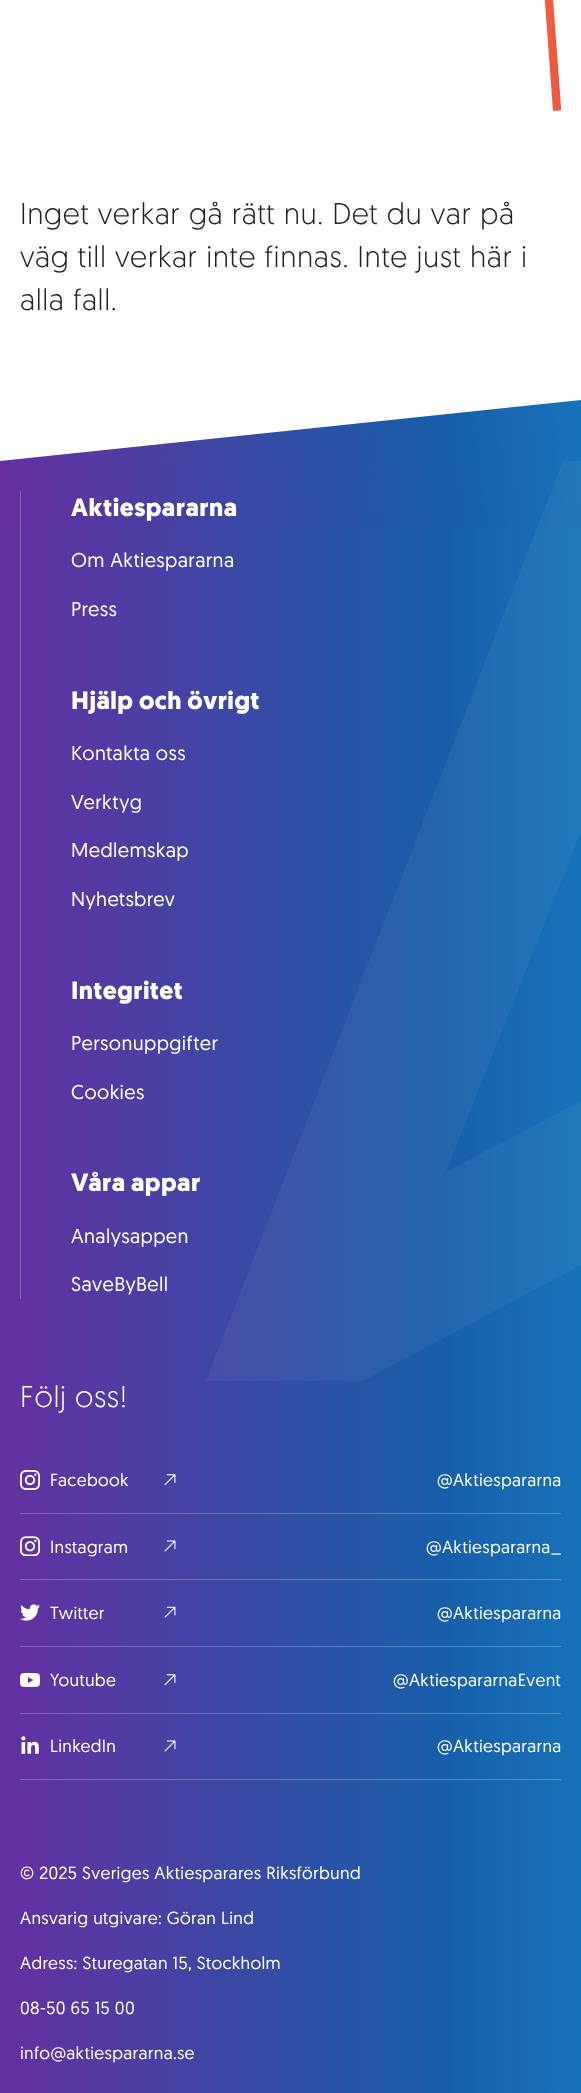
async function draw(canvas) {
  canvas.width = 581
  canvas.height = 2093
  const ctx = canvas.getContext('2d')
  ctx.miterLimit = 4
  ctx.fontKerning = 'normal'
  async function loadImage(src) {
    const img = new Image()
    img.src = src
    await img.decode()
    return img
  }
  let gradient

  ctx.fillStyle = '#fff'
  ctx.fillRect(0, 0, 581, 2093)
  ctx.drawImage(await loadImage('image0.png'), 544, 0, 17, 111)
  ctx.letterSpacing = '0.6px'
  ctx.font = '300 30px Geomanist'
  ctx.fillStyle = '#222'
  ctx.fillText('Inget verkar gå rätt nu. Det du var på', 20, 224)
  ctx.fillText('väg till verkar inte finnas. Inte just här i', 20, 267)
  ctx.fillText('alla fall.', 20, 310)
  gradient = ctx.createLinearGradient(0, 461, 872, 369)
  gradient.addColorStop(0, '#652fa0')
  gradient.addColorStop(0.5, '#185da9')
  gradient.addColorStop(1, '#159eda')
  ctx.fillStyle = gradient
  ctx.beginPath()
  ctx.moveTo(0, 461)
  ctx.lineTo(581, 400)
  ctx.lineTo(581, 1200)
  ctx.lineTo(0, 1261)
  ctx.closePath()
  ctx.fill()
  gradient = ctx.createLinearGradient(0, 461, 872, 461)
  gradient.addColorStop(0, '#652fa0')
  gradient.addColorStop(0.5, '#185da9')
  gradient.addColorStop(1, '#159eda')
  ctx.fillStyle = gradient
  ctx.fillRect(0, 527, 581, 1566)
  gradient = ctx.createLinearGradient(0, 461, 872, 461)
  gradient.addColorStop(0, '#8c63b8')
  gradient.addColorStop(0.5, '#5286bf')
  gradient.addColorStop(1, '#50b6e3')
  ctx.fillStyle = gradient
  ctx.fillRect(20, 1779, 541, 1)
  ctx.fillRect(20, 1713, 541, 1)
  ctx.fillRect(20, 1646, 541, 1)
  ctx.fillRect(20, 1579, 541, 1)
  ctx.fillRect(20, 1513, 541, 1)
  ctx.fillStyle = '#ffffff0d'
  ctx.beginPath()
  ctx.moveTo(581, 1101)
  ctx.lineTo(446, 1172)
  ctx.lineTo(581, 831)
  ctx.lineTo(581, 461)
  ctx.lineTo(563, 461)
  ctx.lineTo(206, 1381)
  ctx.lineTo(363, 1381)
  ctx.lineTo(581, 1265)
  ctx.closePath()
  ctx.fill()
  ctx.fillStyle = '#8965b8'
  ctx.fillRect(20, 491, 1, 55)
  ctx.letterSpacing = '0.5px'
  ctx.font = 'bold 25px Geomanist'
  ctx.fillStyle = '#fff'
  ctx.fillText('Aktiespararna', 71, 516)
  ctx.fillStyle = '#8965b8'
  ctx.fillRect(20, 546, 1, 49)
  ctx.letterSpacing = '0.4px'
  ctx.font = '20px Geomanist'
  ctx.fillStyle = '#fff'
  ctx.fillText('Om Aktiespararna', 71, 567)
  ctx.fillText('Press', 71, 616)
  ctx.fillStyle = '#8965b8'
  ctx.fillRect(20, 595, 1, 89)
  ctx.fillRect(20, 684, 1, 55)
  ctx.letterSpacing = '0.5px'
  ctx.font = 'bold 25px Geomanist'
  ctx.fillStyle = '#fff'
  ctx.fillText('Hjälp och övrigt', 71, 709)
  ctx.fillStyle = '#8965b8'
  ctx.fillRect(20, 739, 1, 49)
  ctx.letterSpacing = '0.4px'
  ctx.font = '20px Geomanist'
  ctx.fillStyle = '#fff'
  ctx.fillText('Kontakta oss', 71, 760)
  ctx.fillStyle = '#8965b8'
  ctx.fillRect(20, 788, 1, 48)
  ctx.fillStyle = '#fff'
  ctx.fillText('Verktyg', 71, 809)
  ctx.fillStyle = '#8965b8'
  ctx.fillRect(20, 836, 1, 49)
  ctx.fillStyle = '#fff'
  ctx.fillText('Medlemskap', 71, 857)
  ctx.fillText('Nyhetsbrev', 71, 906)
  ctx.fillStyle = '#8965b8'
  ctx.fillRect(20, 885, 1, 89)
  ctx.fillRect(20, 974, 1, 55)
  ctx.letterSpacing = '0.5px'
  ctx.font = 'bold 25px Geomanist'
  ctx.fillStyle = '#fff'
  ctx.fillText('Integritet', 71, 999)
  ctx.fillStyle = '#8965b8'
  ctx.fillRect(20, 1029, 1, 49)
  ctx.letterSpacing = '0.4px'
  ctx.font = '20px Geomanist'
  ctx.fillStyle = '#fff'
  ctx.fillText('Personuppgifter', 71, 1050)
  ctx.fillText('Cookies', 71, 1099)
  ctx.fillStyle = '#8965b8'
  ctx.fillRect(20, 1078, 1, 88)
  ctx.fillRect(20, 1166, 1, 55)
  ctx.letterSpacing = '0.5px'
  ctx.font = 'bold 25px Geomanist'
  ctx.fillStyle = '#fff'
  ctx.fillText('Våra appar', 71, 1191)
  ctx.fillStyle = '#8965b8'
  ctx.fillRect(20, 1221, 1, 78)
  ctx.letterSpacing = '0.4px'
  ctx.font = '20px Geomanist'
  ctx.fillStyle = '#fff'
  ctx.fillText('Analysappen', 71, 1243)
  ctx.fillText('SaveByBell', 71, 1291)
  ctx.letterSpacing = '0.6px'
  ctx.font = '300 30px Geomanist'
  ctx.fillText('Följ oss!', 20, 1407)
  ctx.drawImage(await loadImage('image1.png'), 20, 1470, 20, 20)
  ctx.letterSpacing = '0.35px'
  ctx.font = '17.5px Geomanist'
  ctx.fillText('Facebook', 50, 1486)
  ctx.drawImage(await loadImage('image2.png'), 164, 1474, 12, 12)
  ctx.fillText('@Aktiespararna', 437, 1486)
  ctx.drawImage(await loadImage('image3.png'), 20, 1536, 20, 20)
  ctx.fillText('Instagram', 50, 1553)
  ctx.drawImage(await loadImage('image4.png'), 164, 1540, 12, 12)
  ctx.fillText('@Aktiespararna_', 426, 1553)
  ctx.drawImage(await loadImage('image5.png'), 20, 1604, 20, 17)
  ctx.fillText('Twitter', 50, 1619)
  ctx.drawImage(await loadImage('image6.png'), 164, 1606, 12, 12)
  ctx.fillText('@Aktiespararna', 437, 1619)
  ctx.drawImage(await loadImage('image7.png'), 20, 1673, 20, 14)
  ctx.fillText('Youtube', 50, 1686)
  ctx.drawImage(await loadImage('image2.png'), 164, 1674, 12, 12)
  ctx.fillText('@AktiespararnaEvent', 393, 1686)
  ctx.drawImage(await loadImage('image8.png'), 21, 1736, 18, 18)
  ctx.fillText('LinkedIn', 50, 1752)
  ctx.drawImage(await loadImage('image4.png'), 164, 1740, 12, 12)
  ctx.fillText('@Aktiespararna', 437, 1752)
  ctx.fillText('© 2025 Sveriges Aktiesparares Riksförbund', 20, 1879)
  ctx.fillText('Ansvarig utgivare: Göran Lind', 20, 1924)
  ctx.fillText('Adress: Sturegatan 15, Stockholm', 20, 1969)
  ctx.fillText('08-50 65 15 00', 20, 2014)
  ctx.fillText('info@aktiespararna.se', 20, 2059)
}

draw(document.querySelector('canvas'))
